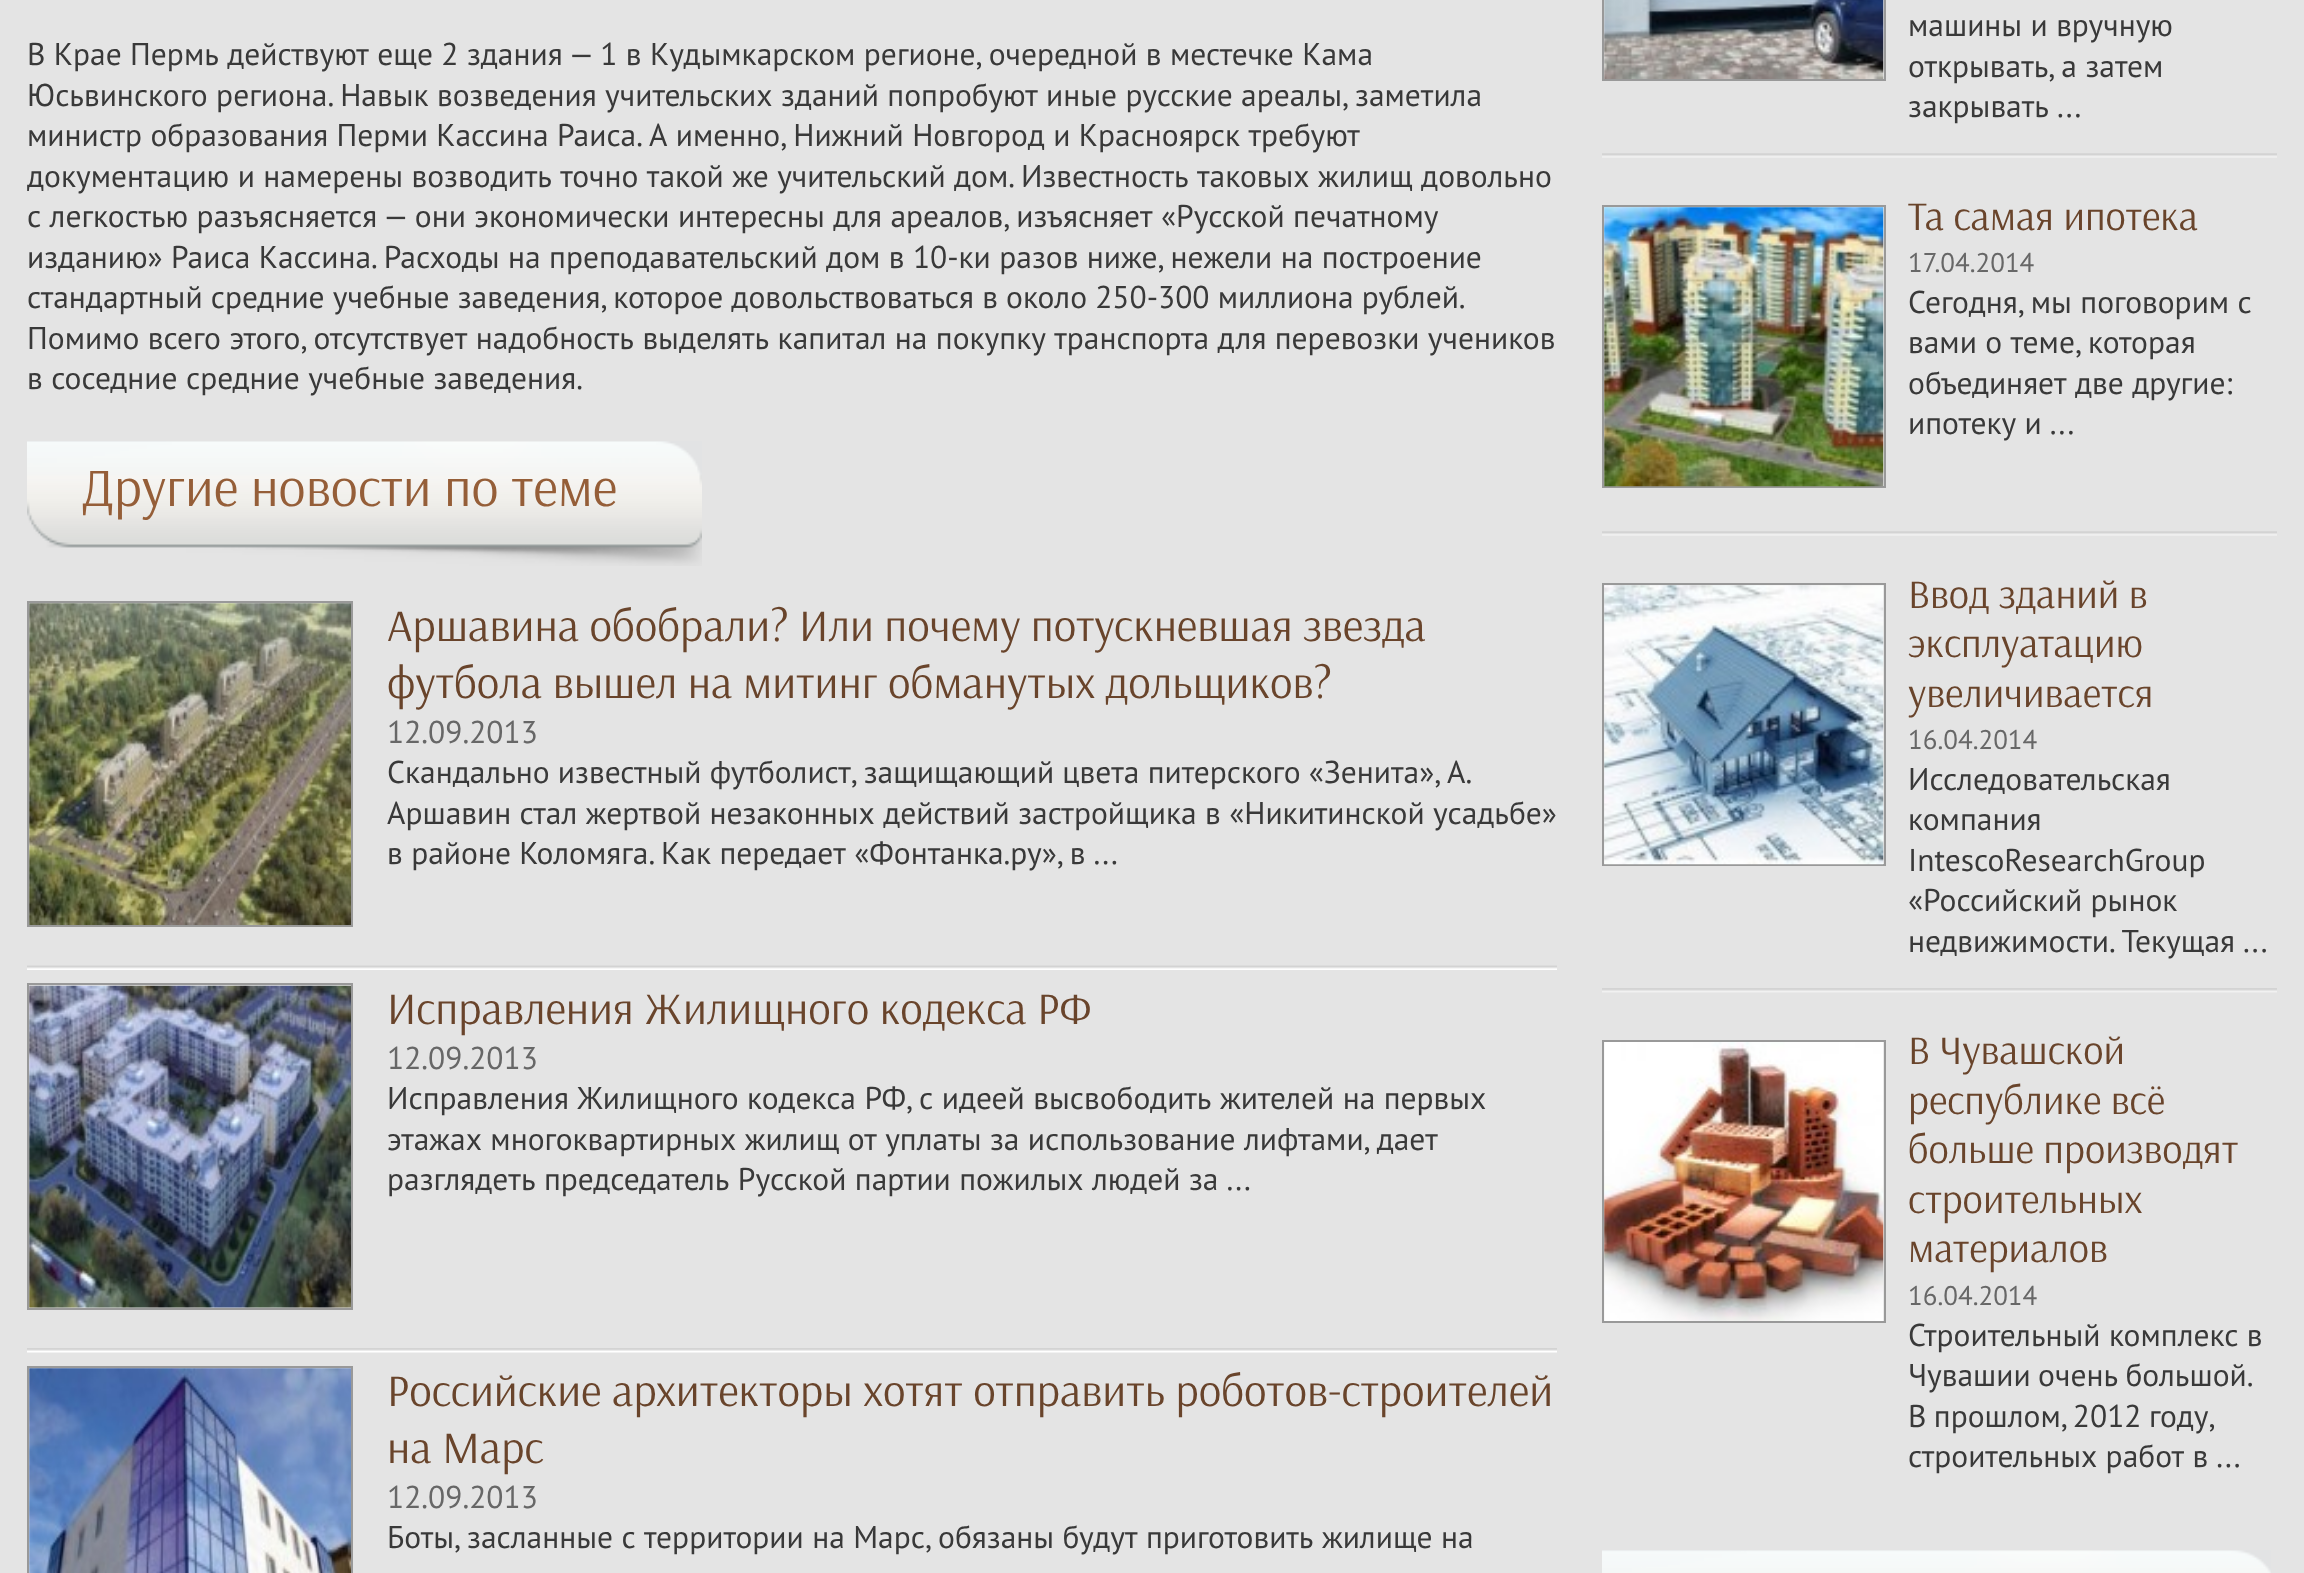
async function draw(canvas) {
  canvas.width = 2304
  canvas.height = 1573
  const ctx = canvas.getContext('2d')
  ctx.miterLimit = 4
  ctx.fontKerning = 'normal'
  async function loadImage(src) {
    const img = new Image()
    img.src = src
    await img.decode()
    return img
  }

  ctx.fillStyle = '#e4e4e4'
  ctx.fillRect(0, 0, 2304, 1573)
  ctx.font = '31.5px PT Sans'
  ctx.fillStyle = '#393939'
  ctx.fillText('В Крае Пермь действуют еще 2 здания — 1 в Кудымкарском регионе, очередной в местечке Кама', 27, 65)
  ctx.fillText('Юсьвинского региона. Навык возведения учительских зданий попробуют иные русские ареалы, заметила', 27, 106)
  ctx.fillText('министр образования Перми Кассина Раиса. А именно, Нижний Новгород и Красноярск требуют', 27, 146)
  ctx.fillText('документацию и намерены возводить точно такой же учительский дом. Известность таковых жилищ довольно', 27, 187)
  ctx.fillText('с легкостью разъясняется — они экономически интересны для ареалов, изъясняет «Русской печатному', 27, 227)
  ctx.fillText('изданию» Раиса Кассина. Расходы на преподавательский дом в 10-ки разов ниже, нежели на построение', 27, 268)
  ctx.wordSpacing = '-0.25px'
  ctx.fillText('стандартный средние учебные заведения, которое довольствоваться в около 250-300 миллиона рублей.', 27, 308)
  ctx.wordSpacing = '0px'
  ctx.fillText('Помимо всего этого, отсутствует надобность выделять капитал на покупку транспорта для перевозки учеников', 27, 349)
  ctx.fillText('в соседние средние учебные заведения.', 27, 389)
  ctx.drawImage(await loadImage('image0.png'), 27, 441, 675, 125)
  ctx.font = '54px Arsenal'
  ctx.fillStyle = '#955e38'
  ctx.fillText('Другие новости по теме', 81, 506)
  ctx.drawImage(await loadImage('image1.png'), 27, 965, 1530, 5)
  ctx.strokeStyle = '#999'
  ctx.lineWidth = 2
  ctx.strokeRect(28, 602, 324, 324)
  ctx.drawImage(await loadImage('image2.png'), 29, 603, 322, 322)
  ctx.font = '45px Arsenal'
  ctx.fillStyle = '#69442b'
  ctx.fillText('Аршавина обобрали? Или почему потускневшая звезда', 387, 641)
  ctx.fillText('футбола вышел на митинг обманутых дольщиков?', 387, 698)
  ctx.font = '31.5px PT Sans'
  ctx.fillStyle = '#676767'
  ctx.fillText('12.09.2013', 387, 743)
  ctx.wordSpacing = '-0.25px'
  ctx.fillStyle = '#393939'
  ctx.fillText('Скандально известный футболист, защищающий цвета питерского «Зенита», А.', 387, 783)
  ctx.wordSpacing = '0px'
  ctx.fillText('Аршавин стал жертвой незаконных действий застройщика в «Никитинской усадьбе»', 387, 824)
  ctx.fillText('в районе Коломяга. Как передает «Фонтанка.ру», в ...', 387, 864)
  ctx.drawImage(await loadImage('image3.png'), 27, 1348, 1530, 5)
  ctx.strokeRect(28, 984, 324, 325)
  ctx.drawImage(await loadImage('image4.png'), 29, 985, 322, 323)
  ctx.font = '45px Arsenal'
  ctx.fillStyle = '#69442b'
  ctx.fillText('Исправления Жилищного кодекса РФ', 387, 1024)
  ctx.font = '31.5px PT Sans'
  ctx.fillStyle = '#676767'
  ctx.fillText('12.09.2013', 387, 1069)
  ctx.fillStyle = '#393939'
  ctx.fillText('Исправления Жилищного кодекса РФ, с идеей высвободить жителей на первых', 387, 1109)
  ctx.fillText('этажах многоквартирных жилищ от уплаты за использование лифтами, дает', 387, 1150)
  ctx.fillText('разглядеть председатель Русской партии пожилых людей за ...', 387, 1190)
  ctx.strokeRect(28, 1367, 324, 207)
  ctx.drawImage(await loadImage('image5.png'), 29, 1368, 322, 205)
  ctx.font = '45px Arsenal'
  ctx.fillStyle = '#69442b'
  ctx.fillText('Российские архитекторы хотят отправить роботов-строителей', 387, 1406)
  ctx.fillText('на Марс', 387, 1463)
  ctx.font = '31.5px PT Sans'
  ctx.fillStyle = '#676767'
  ctx.fillText('12.09.2013', 387, 1508)
  ctx.fillStyle = '#393939'
  ctx.fillText('Боты, засланные с территории на Марс, обязаны будут приготовить жилище на', 387, 1548)
  ctx.drawImage(await loadImage('image6.png'), 1602, 153, 675, 5)
  ctx.strokeRect(1603, -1, 282, 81)
  ctx.drawImage(await loadImage('image7.png'), 1604, 0, 280, 79)
  ctx.fillText('машины и вручную', 1908, 36)
  ctx.fillText('открывать, а затем', 1908, 77)
  ctx.fillText('закрывать ...', 1908, 117)
  ctx.drawImage(await loadImage('image6.png'), 1602, 531, 675, 5)
  ctx.strokeRect(1603, 206, 282, 281)
  ctx.drawImage(await loadImage('image8.png'), 1604, 207, 280, 280)
  ctx.font = '40.5px Arsenal'
  ctx.fillStyle = '#69442b'
  ctx.fillText('Та самая ипотека', 1908, 230)
  ctx.font = '27px PT Sans'
  ctx.fillStyle = '#676767'
  ctx.fillText('17.04.2014', 1908, 272)
  ctx.font = '31.5px PT Sans'
  ctx.fillStyle = '#393939'
  ctx.fillText('Сегодня, мы поговорим с', 1908, 313)
  ctx.fillText('вами о теме, которая', 1908, 353)
  ctx.fillText('объединяет две другие:', 1908, 394)
  ctx.fillText('ипотеку и ...', 1908, 434)
  ctx.drawImage(await loadImage('image9.png'), 1602, 988, 675, 5)
  ctx.strokeRect(1603, 584, 282, 281)
  ctx.drawImage(await loadImage('image10.png'), 1604, 585, 280, 280)
  ctx.font = '40.5px Arsenal'
  ctx.fillStyle = '#69442b'
  ctx.fillText('Ввод зданий в', 1908, 608)
  ctx.fillText('эксплуатацию', 1908, 657)
  ctx.fillText('увеличивается', 1908, 707)
  ctx.font = '27px PT Sans'
  ctx.fillStyle = '#676767'
  ctx.fillText('16.04.2014', 1908, 749)
  ctx.font = '31.5px PT Sans'
  ctx.fillStyle = '#393939'
  ctx.fillText('Исследовательская', 1908, 790)
  ctx.fillText('компания', 1908, 830)
  ctx.fillText('IntescoResearchGroup', 1908, 871)
  ctx.fillText('«Российский рынок', 1908, 911)
  ctx.fillText('недвижимости. Текущая ...', 1908, 952)
  ctx.strokeRect(1603, 1041, 282, 281)
  ctx.drawImage(await loadImage('image11.png'), 1604, 1042, 280, 279)
  ctx.font = '40.5px Arsenal'
  ctx.fillStyle = '#69442b'
  ctx.fillText('В Чувашской', 1908, 1064)
  ctx.fillText('республике всё', 1908, 1114)
  ctx.fillText('больше производят', 1908, 1163)
  ctx.fillText('строительных', 1908, 1213)
  ctx.fillText('материалов', 1908, 1262)
  ctx.font = '27px PT Sans'
  ctx.fillStyle = '#676767'
  ctx.fillText('16.04.2014', 1908, 1305)
  ctx.font = '31.5px PT Sans'
  ctx.fillStyle = '#393939'
  ctx.fillText('Строительный комплекс в', 1908, 1346)
  ctx.wordSpacing = '-1px'
  ctx.fillText('Чувашии очень большой.', 1908, 1386)
  ctx.fillText('В прошлом, 2012 году,', 1908, 1427)
  ctx.wordSpacing = '0px'
  ctx.fillText('строительных работ в ...', 1908, 1467)
  ctx.drawImage(await loadImage('image12.png'), 1602, 1550, 669, 23)
}

draw(document.querySelector('canvas'))
